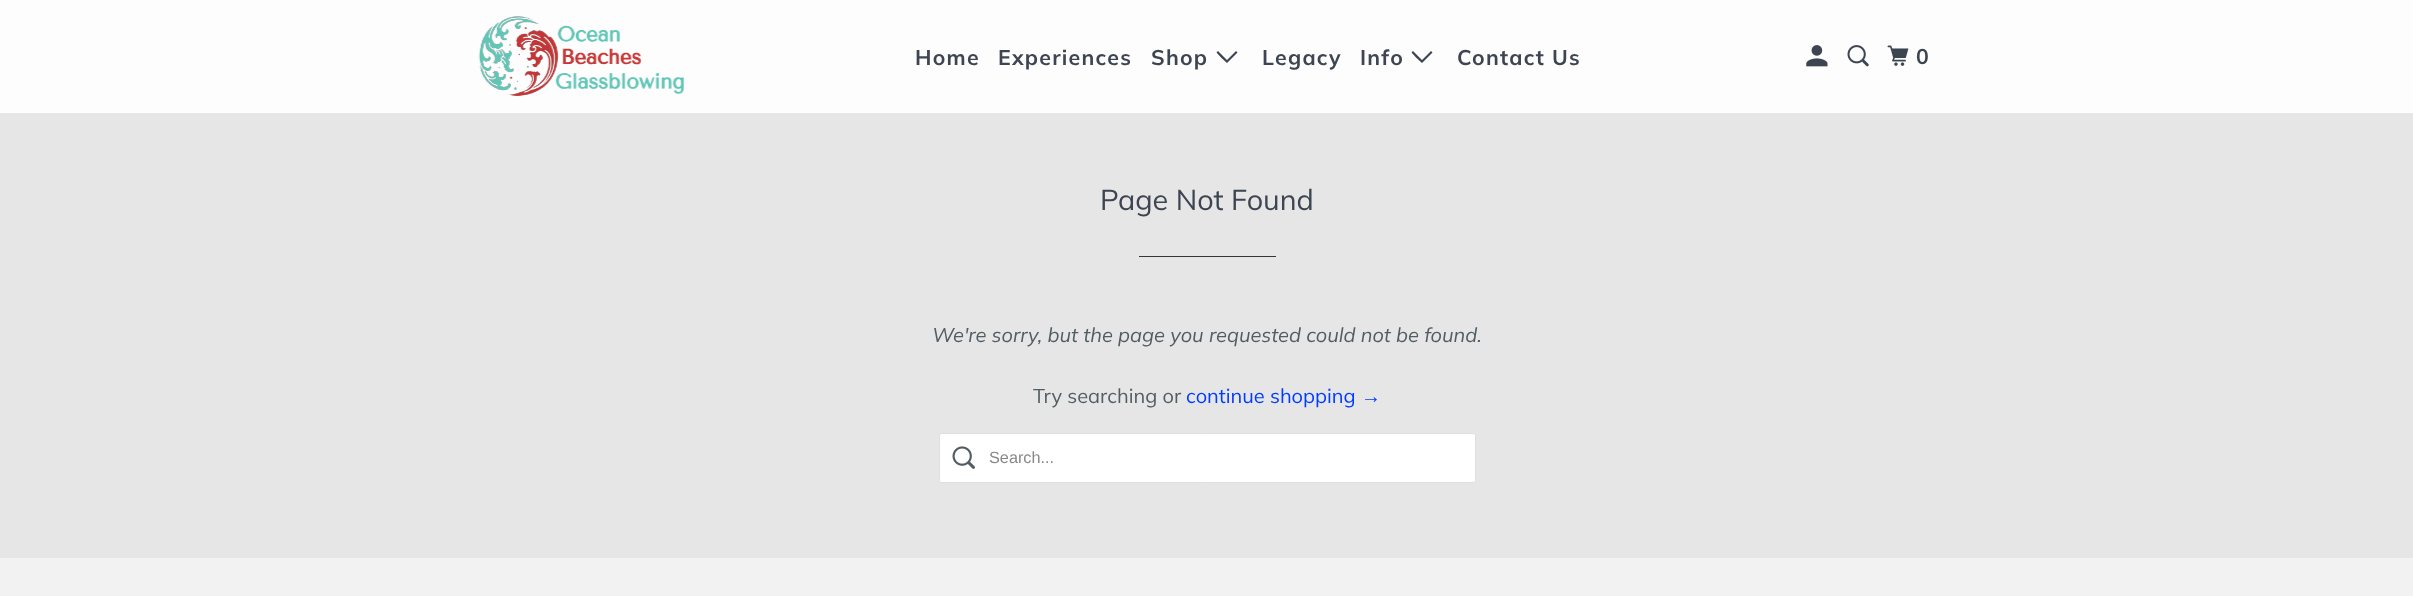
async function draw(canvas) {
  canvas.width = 2413
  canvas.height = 596
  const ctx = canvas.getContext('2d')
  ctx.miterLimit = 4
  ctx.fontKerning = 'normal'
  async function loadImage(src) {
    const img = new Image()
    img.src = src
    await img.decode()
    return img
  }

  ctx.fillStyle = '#e6e6e6'
  ctx.fillRect(0, 0, 2413, 596)
  ctx.fillStyle = '#fdfdfd'
  ctx.fillRect(0, 0, 2413, 113)
  ctx.drawImage(await loadImage('image0.png'), 478, 16, 206, 80)
  ctx.letterSpacing = '1.25px'
  ctx.font = 'bold 21.25px Muli'
  ctx.fillStyle = '#3e4552'
  ctx.fillText('Home', 915, 65)
  ctx.fillText('Experiences', 998, 65)
  ctx.fillText('Shop', 1151, 65)
  ctx.beginPath()
  ctx.moveTo(1221.5, 58)
  ctx.lineTo(1216.5, 52.5)
  ctx.lineTo(1218, 51)
  ctx.lineTo(1227, 60)
  ctx.lineTo(1236, 51)
  ctx.lineTo(1237.5, 52.5)
  ctx.lineTo(1227, 63)
  ctx.closePath()
  ctx.fill()
  ctx.fillText('Legacy', 1262, 65)
  ctx.fillText('Info', 1360, 65)
  ctx.beginPath()
  ctx.moveTo(1416.5, 58)
  ctx.lineTo(1411.5, 52.5)
  ctx.lineTo(1413, 51)
  ctx.lineTo(1422, 60)
  ctx.lineTo(1431, 51)
  ctx.lineTo(1432.5, 52.5)
  ctx.lineTo(1422, 63)
  ctx.closePath()
  ctx.fill()
  ctx.fillText('Contact Us', 1457, 65)
  ctx.drawImage(await loadImage('image1.png'), 1806, 45, 22, 22)
  ctx.drawImage(await loadImage('image2.png'), 1847, 45, 22, 22)
  ctx.drawImage(await loadImage('image3.png'), 1887, 45, 22, 21)
  ctx.fillText('0', 1916, 64)
  ctx.letterSpacing = '0px'
  ctx.font = '28.75px Muli'
  ctx.fillText('Page Not Found', 1100, 210)
  ctx.fillStyle = '#363636'
  ctx.fillRect(1139, 256, 137, 1)
  ctx.font = 'italic 20px Muli'
  ctx.fillStyle = '#525d63'
  ctx.fillText('We\'re sorry, but the page you requested could not be found.', 932, 342)
  ctx.font = '20px Muli'
  ctx.fillText('Try searching or', 1033, 403)
  ctx.fillStyle = '#003cff'
  ctx.fillText('continue shopping', 1186, 403)
  ctx.font = '20px Liberation Sans'
  ctx.fillText('→', 1361, 403)
  ctx.fillStyle = '#fff'
  ctx.beginPath()
  ctx.roundRect(939.5, 433.5, 536, 49, 2)
  ctx.fill()
  ctx.strokeStyle = '#dfdfdf'
  ctx.stroke()
  ctx.drawImage(await loadImage('image4.png'), 952, 446, 23, 23)
  ctx.font = '16.25px Liberation Sans'
  ctx.fillStyle = '#888'
  ctx.fillText('Search...', 989, 463)
  ctx.fillStyle = '#f2f2f2'
  ctx.fillRect(0, 558, 2413, 38)
}

draw(document.querySelector('canvas'))
